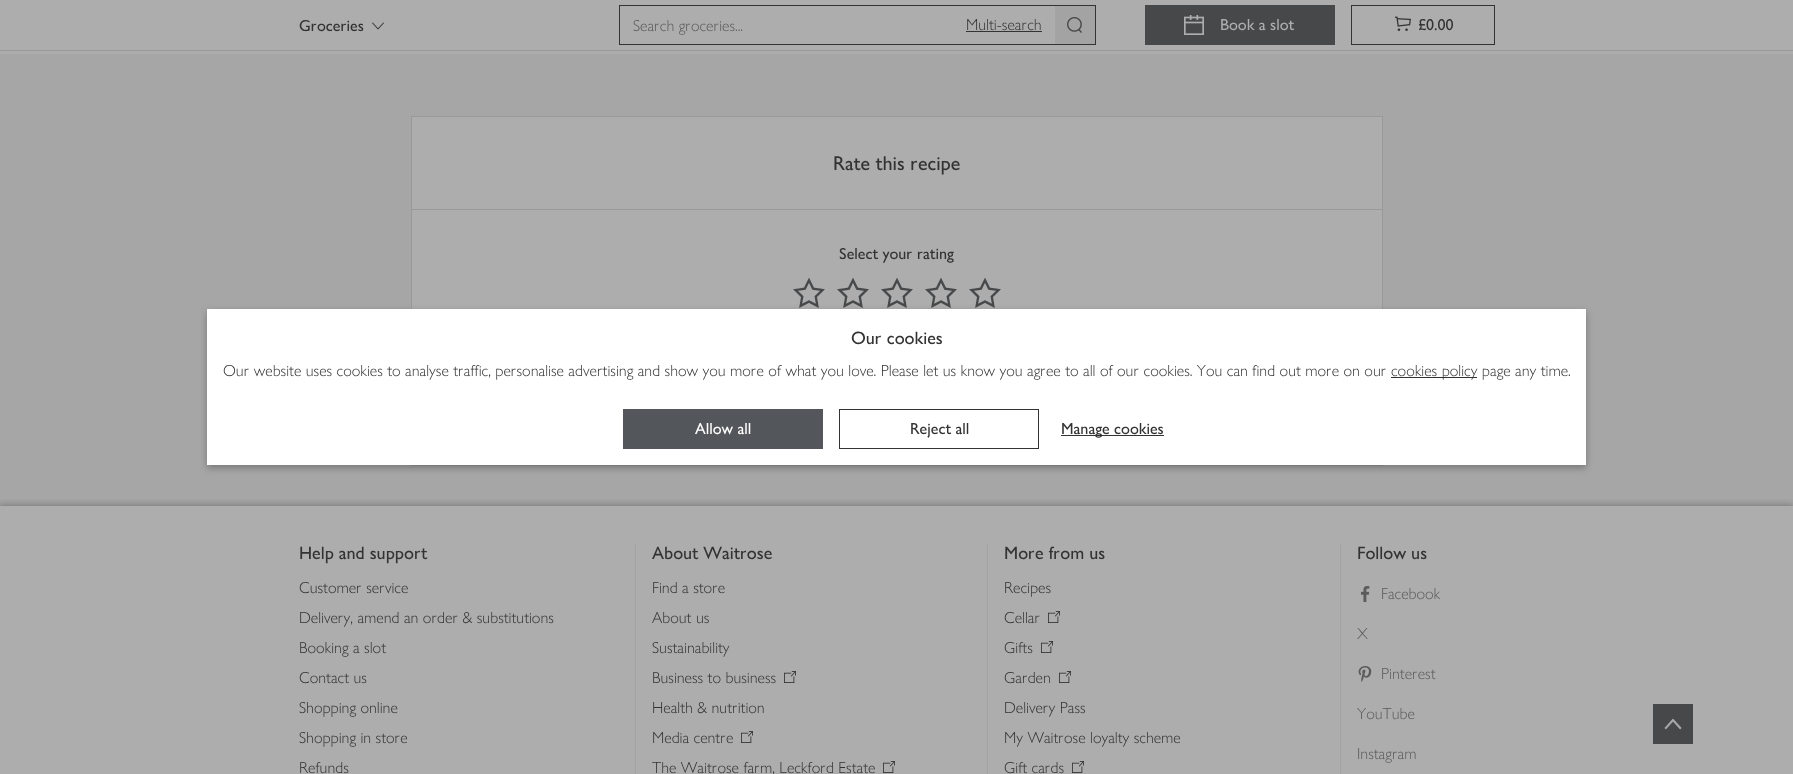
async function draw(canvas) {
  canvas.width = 1793
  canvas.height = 774
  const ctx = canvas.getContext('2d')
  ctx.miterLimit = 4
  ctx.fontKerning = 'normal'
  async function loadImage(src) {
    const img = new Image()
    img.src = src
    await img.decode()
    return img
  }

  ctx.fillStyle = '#adadad'
  ctx.fillRect(0, 0, 1793, 774)
  ctx.fillStyle = '#999'
  ctx.fillRect(0, 50, 1793, 1)
  ctx.font = '500 16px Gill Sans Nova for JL'
  ctx.fillStyle = '#333'
  ctx.fillText('Groceries', 299, 31)
  ctx.drawImage(await loadImage('image0.png'), 372, 22, 12, 8)
  ctx.strokeStyle = '#333'
  ctx.strokeRect(619.5, 5.5, 476, 39)
  ctx.font = '300 16px Gill Sans Nova for JL'
  ctx.fillStyle = '#5b5b5b'
  ctx.fillText('Search groceries...', 633, 31)
  ctx.fillStyle = '#333'
  ctx.fillText('Multi-search', 966, 30)
  ctx.fillRect(966, 31, 76, 1)
  ctx.fillStyle = '#a3a3a3'
  ctx.fillRect(1055, 6, 40, 38)
  ctx.drawImage(await loadImage('image1.png'), 1067, 17, 15, 16)
  ctx.fillStyle = '#46484a'
  ctx.fillRect(1145, 5, 190, 40)
  ctx.drawImage(await loadImage('image2.png'), 1184, 15, 20, 20)
  ctx.font = '500 16px Gill Sans Nova for JL'
  ctx.fillStyle = '#adadad'
  ctx.fillText('Book a slot', 1220, 30)
  ctx.strokeRect(1351.5, 5.5, 143, 39)
  ctx.drawImage(await loadImage('image3.png'), 1395, 16, 16, 15)
  ctx.fillStyle = '#333'
  ctx.fillText('£0.00', 1418, 30)
  ctx.fillStyle = '#a6a6a6'
  ctx.fillRect(0, 54, 1793, 452)
  ctx.fillStyle = '#adadad'
  ctx.fillRect(412, 117, 970, 192)
  ctx.strokeStyle = '#999'
  ctx.strokeRect(411.5, 116.5, 971, 349)
  ctx.fillStyle = '#999'
  ctx.fillRect(412, 209, 970, 1)
  ctx.font = '500 20px Gill Sans Nova for JL'
  ctx.fillStyle = '#333'
  ctx.fillText('Rate this recipe', 833, 170)
  ctx.font = '500 16px Gill Sans Nova for JL'
  ctx.fillText('Select your rating', 839, 259)
  ctx.drawImage(await loadImage('image4.png'), 793, 277, 32, 31)
  ctx.drawImage(await loadImage('image4.png'), 837, 277, 32, 31)
  ctx.drawImage(await loadImage('image4.png'), 881, 277, 32, 31)
  ctx.drawImage(await loadImage('image4.png'), 925, 277, 32, 31)
  ctx.drawImage(await loadImage('image4.png'), 969, 277, 32, 31)
  ctx.save()
  ctx.beginPath()
  ctx.rect(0, 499, 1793, 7)
  ctx.clip()
  ctx.fillStyle = '#33333366'
  ctx.filter = 'blur(3.5px)'
  ctx.beginPath()
  ctx.rect(-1, 505, 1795, 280)
  ctx.fill()
  ctx.filter = 'none'
  ctx.restore()
  ctx.font = '500 18px Gill Sans Nova for JL'
  ctx.fillText('Help and support', 299, 559)
  ctx.font = '300 16px Gill Sans Nova for JL'
  ctx.fillText('Customer service', 299, 593)
  ctx.fillText('Delivery, amend an order & substitutions', 299, 623)
  ctx.fillText('Booking a slot', 299, 653)
  ctx.fillText('Contact us', 299, 683)
  ctx.fillText('Shopping online', 299, 713)
  ctx.fillText('Shopping in store', 299, 743)
  ctx.fillText('Refunds', 299, 773)
  ctx.fillStyle = '#a3a3a3'
  ctx.fillRect(635, 544, 1, 230)
  ctx.font = '500 18px Gill Sans Nova for JL'
  ctx.fillStyle = '#333'
  ctx.fillText('About Waitrose', 652, 559)
  ctx.font = '300 16px Gill Sans Nova for JL'
  ctx.fillText('Find a store', 652, 593)
  ctx.fillText('About us', 652, 623)
  ctx.fillText('Sustainability', 652, 653)
  ctx.fillText('Business to business', 652, 683)
  ctx.drawImage(await loadImage('image5.png'), 784, 671, 12, 12)
  ctx.fillText('Health & nutrition', 652, 713)
  ctx.fillText('Media centre', 652, 743)
  ctx.drawImage(await loadImage('image5.png'), 741, 731, 12, 12)
  ctx.fillText('The Waitrose farm, Leckford Estate', 652, 773)
  ctx.drawImage(await loadImage('image5.png'), 883, 761, 12, 12)
  ctx.fillStyle = '#a3a3a3'
  ctx.fillRect(987, 544, 1, 230)
  ctx.font = '500 18px Gill Sans Nova for JL'
  ctx.fillStyle = '#333'
  ctx.fillText('More from us', 1004, 559)
  ctx.font = '300 16px Gill Sans Nova for JL'
  ctx.fillText('Recipes', 1004, 593)
  ctx.fillText('Cellar', 1004, 623)
  ctx.drawImage(await loadImage('image5.png'), 1048, 611, 12, 12)
  ctx.fillText('Gifts', 1004, 653)
  ctx.drawImage(await loadImage('image5.png'), 1041, 641, 12, 12)
  ctx.fillText('Garden', 1004, 683)
  ctx.drawImage(await loadImage('image5.png'), 1059, 671, 12, 12)
  ctx.fillText('Delivery Pass', 1004, 713)
  ctx.fillText('My Waitrose loyalty scheme', 1004, 743)
  ctx.fillText('Gift cards', 1004, 773)
  ctx.drawImage(await loadImage('image5.png'), 1072, 761, 12, 12)
  ctx.fillStyle = '#a3a3a3'
  ctx.fillRect(1340, 544, 1, 230)
  ctx.font = '500 18px Gill Sans Nova for JL'
  ctx.fillStyle = '#333'
  ctx.fillText('Follow us', 1357, 559)
  ctx.drawImage(await loadImage('image6.png'), 1361, 586, 9, 16)
  ctx.font = '300 16px Gill Sans Nova for JL'
  ctx.fillStyle = '#5b5b5b'
  ctx.fillText('Facebook', 1381, 599)
  ctx.fillText('X', 1357, 639)
  ctx.drawImage(await loadImage('image7.png'), 1358, 666, 14, 16)
  ctx.fillText('Pinterest', 1381, 679)
  ctx.fillText('YouTube', 1357, 719)
  ctx.fillText('Instagram', 1357, 759)
  ctx.fillStyle = '#46484a'
  ctx.fillRect(1653, 704, 40, 40)
  ctx.drawImage(await loadImage('image8.png'), 1664, 718, 18, 12)
  ctx.fillStyle = '#33333366'
  ctx.filter = 'blur(3.5px)'
  ctx.beginPath()
  ctx.rect(207, 312, 1379, 156)
  ctx.fill()
  ctx.filter = 'none'
  ctx.fillStyle = '#fff'
  ctx.fillRect(207, 309, 1379, 156)
  ctx.font = '500 18px Gill Sans Nova for JL'
  ctx.fillStyle = '#333'
  ctx.fillText('Our cookies', 851, 344)
  ctx.font = '300 16px Gill Sans Nova for JL'
  ctx.fillText('Our website uses cookies to analyse traffic, personalise advertising and show you more of what you love. Please let us know you agree to all of our cookies. You can find out more on our', 223, 376)
  ctx.fillRect(1391, 377, 86, 1)
  ctx.fillText('cookies policy page any time.', 1391, 376)
  ctx.fillStyle = '#53565a'
  ctx.fillRect(623, 409, 200, 40)
  ctx.font = '500 16px Gill Sans Nova for JL'
  ctx.fillStyle = '#fff'
  ctx.fillText('Allow all', 695, 434)
  ctx.strokeStyle = '#333'
  ctx.strokeRect(839.5, 409.5, 199, 39)
  ctx.fillStyle = '#333'
  ctx.fillText('Reject all', 910, 434)
  ctx.fillRect(1061, 435, 103, 1)
  ctx.fillText('Manage cookies', 1061, 434)
}

draw(document.querySelector('canvas'))
